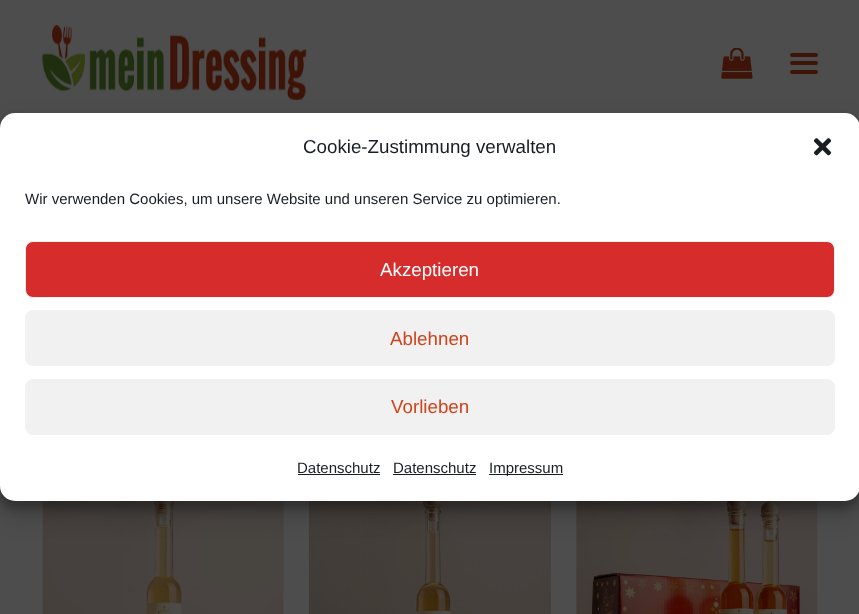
async function draw(canvas) {
  canvas.width = 859
  canvas.height = 614
  const ctx = canvas.getContext('2d')
  ctx.miterLimit = 4
  ctx.fontKerning = 'normal'
  async function loadImage(src) {
    const img = new Image()
    img.src = src
    await img.decode()
    return img
  }

  ctx.fillStyle = '#4d4d4d'
  ctx.fillRect(0, 0, 859, 614)
  ctx.drawImage(await loadImage('image0.png'), 42, 25, 265, 75)
  ctx.drawImage(await loadImage('image1.png'), 721, 48, 32, 31)
  ctx.fillStyle = '#3e1408'
  ctx.beginPath()
  ctx.roundRect(790, 61, 28, 4, 2)
  ctx.fill()
  ctx.beginPath()
  ctx.roundRect(790, 53, 28, 4, 2)
  ctx.fill()
  ctx.beginPath()
  ctx.roundRect(790, 70, 28, 4, 2)
  ctx.fill()
  ctx.drawImage(await loadImage('image2.png'), 42, 501, 242, 113)
  ctx.drawImage(await loadImage('image3.png'), 308, 501, 243, 113)
  ctx.drawImage(await loadImage('image4.png'), 576, 501, 242, 113)
  ctx.fillStyle = '#0000003b'
  ctx.filter = 'blur(4px)'
  ctx.beginPath()
  ctx.roundRect(0, 120, 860, 389, 15)
  ctx.fill()
  ctx.filter = 'none'
  ctx.fillStyle = '#00000030'
  ctx.filter = 'blur(12.5px)'
  ctx.beginPath()
  ctx.roundRect(0, 125, 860, 389, 15)
  ctx.fill()
  ctx.filter = 'none'
  ctx.fillStyle = '#fff'
  ctx.beginPath()
  ctx.roundRect(0, 113, 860, 388, 15)
  ctx.fill()
  ctx.font = '18.75px Liberation Sans'
  ctx.fillStyle = '#191e23'
  ctx.fillText('Cookie-Zustimmung verwalten', 303, 153)
  ctx.drawImage(await loadImage('image5.png'), 813, 138, 19, 18)
  ctx.font = '15px Liberation Sans'
  ctx.fillText('Wir verwenden Cookies, um unsere Website und unseren Service zu optimieren.', 25, 204)
  ctx.fillStyle = '#d62c2c'
  ctx.beginPath()
  ctx.roundRect(25.5, 241.5, 809, 56, 7.5)
  ctx.fill()
  ctx.strokeStyle = '#f1f1f1'
  ctx.stroke()
  ctx.font = '18.75px Liberation Sans'
  ctx.fillStyle = '#fff'
  ctx.fillText('Akzeptieren', 380, 276)
  ctx.fillStyle = '#f1f1f1'
  ctx.beginPath()
  ctx.roundRect(25.5, 310.5, 809, 55, 7.5)
  ctx.fill()
  ctx.stroke()
  ctx.fillStyle = '#cf431b'
  ctx.fillText('Ablehnen', 390, 345)
  ctx.fillStyle = '#f1f1f1'
  ctx.beginPath()
  ctx.roundRect(25.5, 379.5, 809, 55, 7.5)
  ctx.fill()
  ctx.stroke()
  ctx.fillStyle = '#cf431b'
  ctx.fillText('Vorlieben', 391, 413)
  ctx.font = '15px Liberation Sans'
  ctx.fillStyle = '#191e23'
  ctx.fillText('Datenschutz', 297, 473)
  ctx.fillRect(298, 474, 82, 1)
  ctx.fillText('Datenschutz', 393, 473)
  ctx.fillRect(393, 474, 83, 1)
  ctx.fillRect(489, 474, 74, 1)
  ctx.fillText('Impressum', 489, 473)
}

draw(document.querySelector('canvas'))
